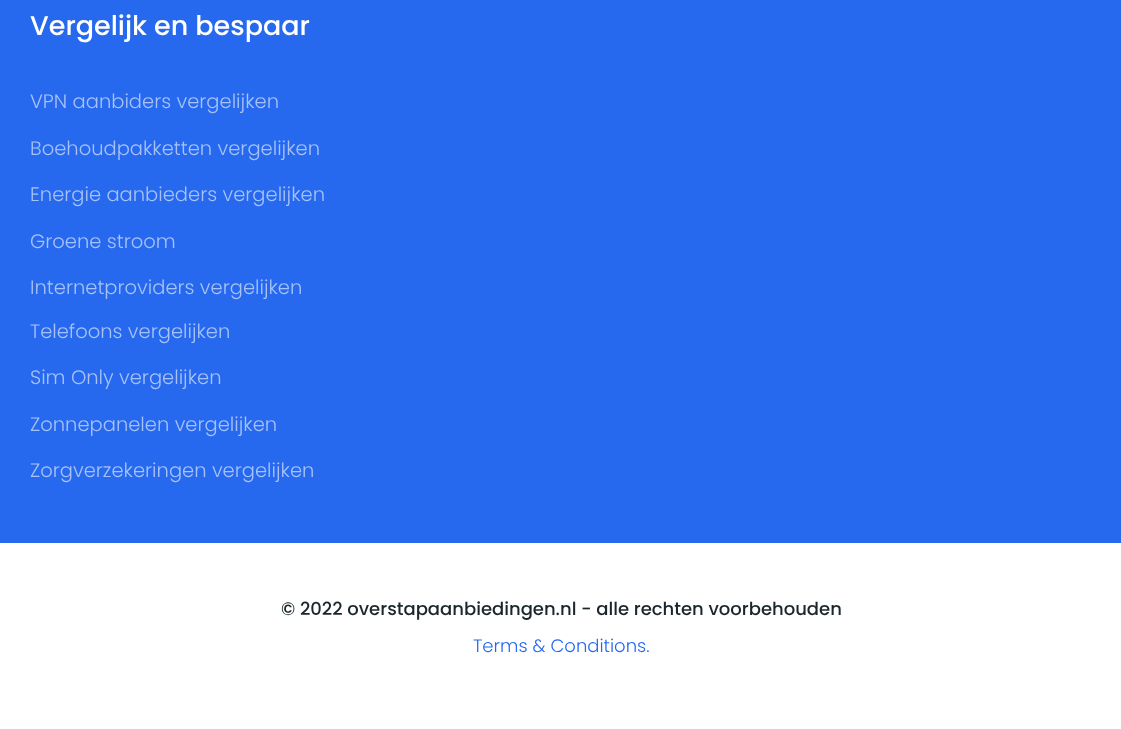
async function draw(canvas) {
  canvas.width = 1121
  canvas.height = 729
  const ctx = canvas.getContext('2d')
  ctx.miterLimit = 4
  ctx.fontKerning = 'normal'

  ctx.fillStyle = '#fff'
  ctx.fillRect(0, 0, 1121, 729)
  ctx.fillStyle = '#2669ef'
  ctx.fillRect(0, 0, 1121, 543)
  ctx.font = '500 27px Poppins'
  ctx.fillStyle = '#fff'
  ctx.fillText('Vergelijk en bespaar', 30, 35)
  ctx.font = '300 19.5px Poppins'
  ctx.fillStyle = '#a6c2f8'
  ctx.fillText('VPN aanbiders vergelijken', 30, 108)
  ctx.fillText('Boehoudpakketten vergelijken', 30, 155)
  ctx.fillText('Energie aanbieders vergelijken', 30, 201)
  ctx.fillText('Groene stroom', 30, 248)
  ctx.fillText('Internetproviders vergelijken', 30, 294)
  ctx.fillText('Telefoons vergelijken', 30, 338)
  ctx.fillText('Sim Only vergelijken', 30, 384)
  ctx.fillText('Zonnepanelen vergelijken', 30, 431)
  ctx.fillText('Zorgverzekeringen vergelijken', 30, 477)
  ctx.font = '500 18px Poppins'
  ctx.fillStyle = '#1b262c'
  ctx.fillText('© 2022 overstapaanbiedingen.nl - alle rechten voorbehouden', 281, 615)
  ctx.font = '300 18px Poppins'
  ctx.fillStyle = '#2669ef'
  ctx.fillText('Terms & Conditions.', 473, 652)
}

draw(document.querySelector('canvas'))
